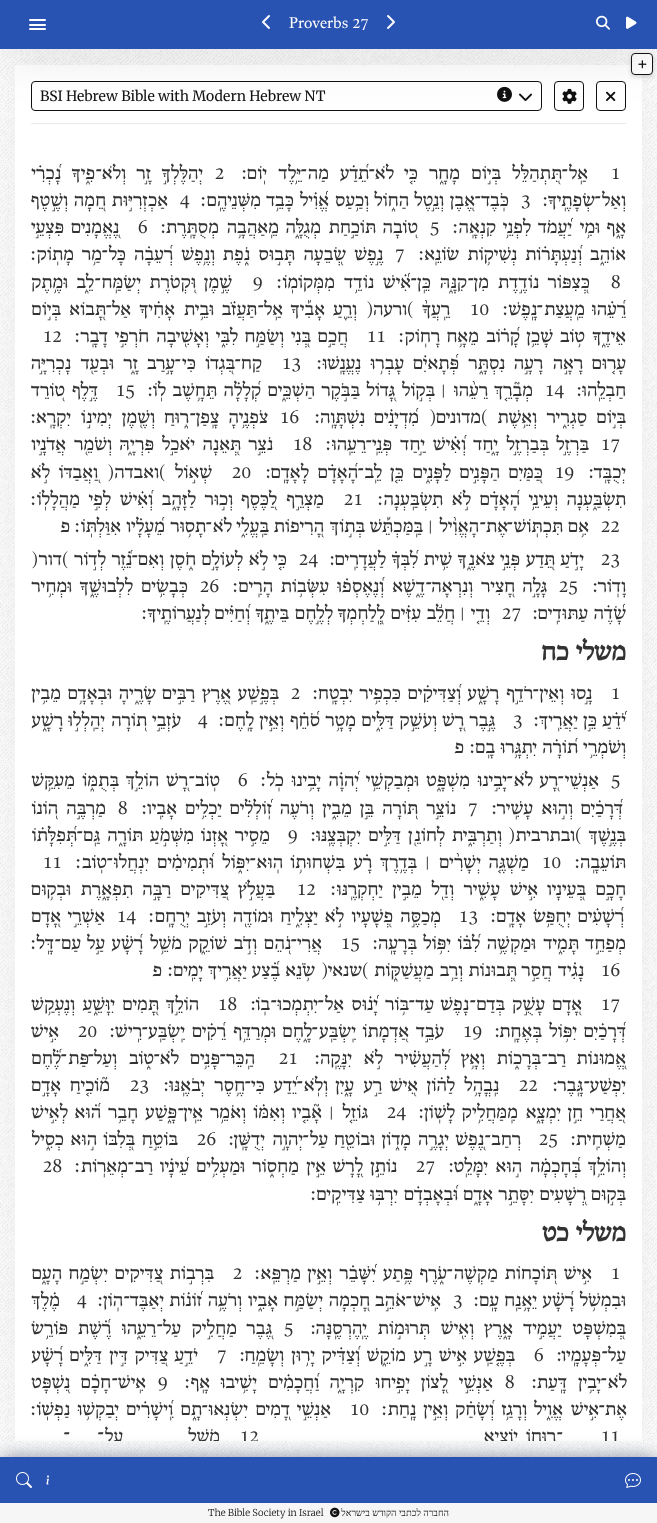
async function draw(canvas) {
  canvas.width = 657
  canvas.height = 1523
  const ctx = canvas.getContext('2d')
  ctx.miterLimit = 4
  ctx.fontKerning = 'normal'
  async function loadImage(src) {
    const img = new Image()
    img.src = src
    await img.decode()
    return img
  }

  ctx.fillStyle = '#fff'
  ctx.fillRect(0, 0, 657, 1523)
  ctx.drawImage(await loadImage('image0.png'), 0, 49, 657, 1408)
  ctx.save()
  ctx.beginPath()
  ctx.rect(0, 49, 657, 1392)
  ctx.clip()
  ctx.fillStyle = '#99999929'
  ctx.filter = 'blur(30px)'
  ctx.beginPath()
  ctx.rect(15, 80, 627, 1376)
  ctx.fill()
  ctx.filter = 'none'
  ctx.restore()
  ctx.fillRect(15, 65, 627, 1376)
  ctx.beginPath()
  ctx.roundRect(596.5, 81.5, 29, 29, 3.5)
  ctx.strokeStyle = '#111'
  ctx.stroke()
  ctx.fillStyle = '#00000029'
  ctx.filter = 'blur(2px)'
  ctx.beginPath()
  ctx.roundRect(631, 55, 22, 22, 4)
  ctx.fill()
  ctx.filter = 'none'
  ctx.fillStyle = '#fff'
  ctx.beginPath()
  ctx.roundRect(631.5, 53.5, 21, 21, 3.5)
  ctx.fill()
  ctx.stroke()
  ctx.drawImage(await loadImage('image5.png'), 638, 60, 9, 9)
  ctx.drawImage(await loadImage('image6.png'), 606, 91, 10, 10)
  ctx.beginPath()
  ctx.roundRect(554.5, 81.5, 29, 29, 3.5)
  ctx.stroke()
  ctx.drawImage(await loadImage('image7.png'), 562, 88, 15, 16)
  ctx.beginPath()
  ctx.roundRect(31.5, 81.5, 510, 29, 3.5)
  ctx.stroke()
  ctx.drawImage(await loadImage('image8.png'), 519, 93, 13, 8)
  ctx.drawImage(await loadImage('image9.png'), 497, 86, 15, 16)
  ctx.fillStyle = '#eaeaea'
  ctx.fillRect(31, 123, 595, 1)
  ctx.fillStyle = '#4141411a'
  ctx.filter = 'blur(20px)'
  ctx.beginPath()
  ctx.rect(0, 15, 657, 49)
  ctx.fill()
  ctx.filter = 'none'
  ctx.fillStyle = '#2953b3'
  ctx.fillRect(0, 0, 657, 49)
  ctx.drawImage(await loadImage('image1.png'), 626, 16, 11, 13)
  ctx.drawImage(await loadImage('image2.png'), 596, 15, 14, 15)
  ctx.drawImage(await loadImage('image3.png'), 387, 15, 8, 14)
  ctx.font = '16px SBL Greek'
  ctx.fillStyle = '#fff'
  ctx.fillText('Proverbs 27', 289, 28)
  ctx.drawImage(await loadImage('image4.png'), 262, 15, 8, 14)
  ctx.beginPath()
  ctx.roundRect(29, 19, 17, 2, 1)
  ctx.fill()
  ctx.beginPath()
  ctx.roundRect(29, 24, 17, 2, 1)
  ctx.fill()
  ctx.beginPath()
  ctx.roundRect(29, 28, 17, 2, 1)
  ctx.fill()
  ctx.font = '14px Merriweather'
  ctx.fillStyle = '#111'
  ctx.fillText('BSI Hebrew Bible with Modern Hebrew NT', 40, 101)
  ctx.font = '19px SBL Greek'
  ctx.fillStyle = '#333'
  ctx.fillText('1', 611, 179)
  ctx.direction = 'rtl'
  ctx.font = '19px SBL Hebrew'
  ctx.fillText('אַֽל', 588, 179)
  ctx.fillText('־', 568, 179)
  ctx.fillText('תִּ֭תְהַלֵּל', 562, 179)
  ctx.fillText('בְּי֣וֹם', 501, 179)
  ctx.fillText('מָחָ֑ר', 460, 179)
  ctx.fillText('כִּ֤י', 418, 179)
  ctx.fillText('לֹא', 394, 179)
  ctx.fillText('־', 375, 179)
  ctx.fillText('תֵ֝דַ֗ע', 369, 179)
  ctx.fillText('מַה', 329, 179)
  ctx.fillText('־', 307, 179)
  ctx.fillText('יֵּ֥לֶד', 301, 179)
  ctx.fillText('יֽוֹם', 267, 179)
  ctx.fillText('׃', 247, 179)
  ctx.direction = 'ltr'
  ctx.font = '19px SBL Greek'
  ctx.fillText('2', 215, 179)
  ctx.direction = 'rtl'
  ctx.font = '19px SBL Hebrew'
  ctx.fillText('יְהַלֶּלְךָ֣', 203, 179)
  ctx.fillText('זָ֣ר', 151, 179)
  ctx.fillText('וְלֹא', 126, 179)
  ctx.fillText('־', 102, 179)
  ctx.fillText('פִ֑יךָ', 95, 179)
  ctx.fillText('נָ֝כְרִ֗י', 61, 179)
  ctx.fillText('וְאַל', 626, 206)
  ctx.fillText('־', 601, 206)
  ctx.fillText('שְׂפָתֶֽיךָ', 595, 206)
  ctx.fillText('׃', 548, 206)
  ctx.direction = 'ltr'
  ctx.font = '19px SBL Greek'
  ctx.fillText('3', 521, 206)
  ctx.direction = 'rtl'
  ctx.font = '19px SBL Hebrew'
  ctx.fillText('כֹּֽבֶד', 509, 206)
  ctx.fillText('־', 481, 206)
  ctx.fillText('אֶ֭בֶן', 475, 206)
  ctx.fillText('וְנֵ֣טֶל', 444, 206)
  ctx.fillText('הַח֑וֹל', 409, 206)
  ctx.fillText('וְכַ֥עַס', 369, 206)
  ctx.fillText('אֱ֝וִ֗יל', 329, 206)
  ctx.fillText('כָּבֵ֥ד', 294, 206)
  ctx.fillText('מִשְּׁנֵיהֶֽם', 261, 206)
  ctx.fillText('׃', 206, 206)
  ctx.direction = 'ltr'
  ctx.font = '19px SBL Greek'
  ctx.fillText('4', 180, 206)
  ctx.direction = 'rtl'
  ctx.font = '19px SBL Hebrew'
  ctx.fillText('אַכְזְרִיּ֣וּת', 168, 206)
  ctx.fillText('חֵ֭מָה', 106, 206)
  ctx.fillText('וְשֶׁ֣טֶף', 68, 206)
  ctx.fillText('אָ֑ף', 626, 233)
  ctx.fillText('וּמִ֥י', 600, 233)
  ctx.fillText('יַ֝עֲמֹד', 572, 233)
  ctx.fillText('לִפְנֵ֥י', 531, 233)
  ctx.fillText('קִנְאָֽה', 496, 233)
  ctx.fillText('׃', 458, 233)
  ctx.direction = 'ltr'
  ctx.font = '19px SBL Greek'
  ctx.fillText('5', 430, 233)
  ctx.direction = 'rtl'
  ctx.font = '19px SBL Hebrew'
  ctx.fillText('ט֭וֹבָה', 418, 233)
  ctx.fillText('תּוֹכַ֣חַת', 376, 233)
  ctx.fillText('מְגֻלָּ֑ה', 321, 233)
  ctx.fillText('מֵֽאַהֲבָ֥ה', 279, 233)
  ctx.fillText('מְסֻתָּֽרֶת', 219, 233)
  ctx.fillText('׃', 166, 233)
  ctx.direction = 'ltr'
  ctx.font = '19px SBL Greek'
  ctx.fillText('6', 138, 233)
  ctx.direction = 'rtl'
  ctx.font = '19px SBL Hebrew'
  ctx.fillText('נֶ֭אֱמָנִים', 119, 233)
  ctx.fillText('פִּצְעֵ֣י', 64, 233)
  ctx.fillText('אוֹהֵ֑ב', 626, 260)
  ctx.fillText('וְ֝נַעְתָּר֗וֹת', 582, 260)
  ctx.fillText('נְשִׁיק֥וֹת', 517, 260)
  ctx.fillText('שׂוֹנֵֽא', 459, 260)
  ctx.fillText('׃', 424, 260)
  ctx.direction = 'ltr'
  ctx.font = '19px SBL Greek'
  ctx.fillText('7', 395, 260)
  ctx.direction = 'rtl'
  ctx.font = '19px SBL Hebrew'
  ctx.fillText('נֶ֣פֶשׁ', 383, 260)
  ctx.fillText('שְׂ֭בֵעָה', 346, 260)
  ctx.fillText('תָּב֣וּס', 295, 260)
  ctx.fillText('נֹ֑פֶת', 250, 260)
  ctx.fillText('וְנֶ֥פֶשׁ', 215, 260)
  ctx.fillText('רְ֝עֵבָ֗ה', 173, 260)
  ctx.fillText('כָּל', 126, 260)
  ctx.fillText('־', 108, 260)
  ctx.fillText('מַ֥ר', 102, 260)
  ctx.fillText('מָתֽוֹק', 74, 260)
  ctx.fillText('׃', 36, 260)
  ctx.direction = 'ltr'
  ctx.font = '19px SBL Greek'
  ctx.fillText('8', 611, 288)
  ctx.direction = 'rtl'
  ctx.font = '19px SBL Hebrew'
  ctx.fillText('כְּ֭צִפּוֹר', 590, 288)
  ctx.fillText('נוֹדֶ֣דֶת', 539, 288)
  ctx.fillText('מִן', 489, 288)
  ctx.fillText('־', 474, 288)
  ctx.fillText('קִנָּ֑הּ', 467, 288)
  ctx.fillText('כֵּֽן', 431, 288)
  ctx.fillText('־', 417, 288)
  ctx.fillText('אִ֝֗ישׁ', 411, 288)
  ctx.fillText('נוֹדֵ֥ד', 374, 288)
  ctx.fillText('מִמְּקוֹמֽוֹ', 335, 288)
  ctx.fillText('׃', 282, 288)
  ctx.direction = 'ltr'
  ctx.font = '19px SBL Greek'
  ctx.fillText('9', 253, 288)
  ctx.direction = 'rtl'
  ctx.font = '19px SBL Hebrew'
  ctx.fillText('שֶׁ֣מֶן', 232, 288)
  ctx.fillText('וּ֭קְטֹרֶת', 196, 288)
  ctx.fillText('יְשַׂמַּֽח', 141, 288)
  ctx.fillText('־', 101, 288)
  ctx.fillText('לֵ֑ב', 94, 288)
  ctx.fillText('וּמֶ֥תֶק', 68, 288)
  ctx.fillText('רֵ֝עֵ֗הוּ', 626, 315)
  ctx.fillText('מֵֽעֲצַת', 585, 315)
  ctx.fillText('־', 543, 315)
  ctx.fillText('נָֽפֶשׁ', 537, 315)
  ctx.fillText('׃', 508, 315)
  ctx.direction = 'ltr'
  ctx.font = '19px SBL Greek'
  ctx.fillText('10', 470, 315)
  ctx.direction = 'rtl'
  ctx.font = '19px SBL Hebrew'
  ctx.fillText('רֵֽעֲךָ֨', 450, 315)
  ctx.direction = 'ltr'
  ctx.font = '19px SBL Greek'
  ctx.fillText('(', 407, 315)
  ctx.direction = 'rtl'
  ctx.font = '19px SBL Hebrew'
  ctx.fillText('ורעה', 407, 315)
  ctx.direction = 'ltr'
  ctx.font = '19px SBL Greek'
  ctx.fillText(')', 366, 315)
  ctx.direction = 'rtl'
  ctx.font = '19px SBL Hebrew'
  ctx.fillText('וְרֵ֪עַ', 357, 315)
  ctx.fillText('אָבִ֡יךָ', 325, 315)
  ctx.fillText('אַֽל', 283, 315)
  ctx.fillText('־', 264, 315)
  ctx.fillText('תַּעֲזֹ֗ב', 257, 315)
  ctx.fillText('וּבֵ֥ית', 214, 315)
  ctx.fillText('אָחִ֗יךָ', 175, 315)
  ctx.fillText('אַל', 131, 315)
  ctx.fillText('־', 112, 315)
  ctx.fillText('תָּ֭בוֹא', 106, 315)
  ctx.fillText('בְּי֣וֹם', 61, 315)
  ctx.fillText('אֵידֶ֑ךָ', 626, 342)
  ctx.fillText('ט֥וֹב', 585, 342)
  ctx.fillText('שָׁכֵ֥ן', 553, 342)
  ctx.fillText('קָ֝ר֗וֹב', 520, 342)
  ctx.fillText('מֵאָ֥ח', 479, 342)
  ctx.fillText('רָחֽוֹק', 440, 342)
  ctx.fillText('׃', 404, 342)
  ctx.direction = 'ltr'
  ctx.font = '19px SBL Greek'
  ctx.fillText('11', 367, 342)
  ctx.direction = 'rtl'
  ctx.font = '19px SBL Hebrew'
  ctx.fillText('חֲכַ֣ם', 348, 342)
  ctx.fillText('בְּ֭נִי', 311, 342)
  ctx.fillText('וְשַׂמַּ֣ח', 284, 342)
  ctx.fillText('לִבִּ֑י', 238, 342)
  ctx.fillText('וְאָשִׁ֖יבָה', 209, 342)
  ctx.fillText('חֹרְפִ֣י', 149, 342)
  ctx.fillText('דָבָֽר', 108, 342)
  ctx.fillText('׃', 80, 342)
  ctx.direction = 'ltr'
  ctx.font = '19px SBL Greek'
  ctx.fillText('12', 43, 342)
  ctx.direction = 'rtl'
  ctx.font = '19px SBL Hebrew'
  ctx.fillText('עָר֤וּם', 626, 369)
  ctx.fillText('רָאָ֣ה', 583, 369)
  ctx.fillText('רָעָ֣ה', 543, 369)
  ctx.fillText('נִסְתָּ֑ר', 505, 369)
  ctx.fillText('פְּ֝תָאיִ֗ם', 459, 369)
  ctx.fillText('עָבְר֥וּ', 404, 369)
  ctx.fillText('נֶעֱנָֽשׁוּ', 361, 369)
  ctx.fillText('׃', 322, 369)
  ctx.direction = 'ltr'
  ctx.font = '19px SBL Greek'
  ctx.fillText('13', 282, 369)
  ctx.direction = 'rtl'
  ctx.font = '19px SBL Hebrew'
  ctx.fillText('קַח', 262, 369)
  ctx.fillText('־', 241, 369)
  ctx.fillText('בִּ֭גְדוֹ', 235, 369)
  ctx.fillText('כִּי', 196, 369)
  ctx.fillText('־', 181, 369)
  ctx.fillText('עָ֣רַב', 175, 369)
  ctx.fillText('זָ֑ר', 138, 369)
  ctx.fillText('וּבְעַ֖ד', 114, 369)
  ctx.fillText('נָכְרִיָּ֣ה', 71, 369)
  ctx.fillText('חַבְלֵֽהוּ', 626, 396)
  ctx.fillText('׃', 582, 396)
  ctx.direction = 'ltr'
  ctx.font = '19px SBL Greek'
  ctx.fillText('14', 545, 396)
  ctx.direction = 'rtl'
  ctx.font = '19px SBL Hebrew'
  ctx.fillText('מְבָ֘רֵ֤ךְ', 533, 396)
  ctx.fillText('רֵעֵ֨הוּ', 488, 396)
  ctx.fillText('׀', 447, 396)
  ctx.fillText('בְּק֣וֹל', 435, 396)
  ctx.fillText('גָּ֭דוֹל', 395, 396)
  ctx.fillText('בַּבֹּ֣קֶר', 360, 396)
  ctx.fillText('הַשְׁכֵּ֑ים', 315, 396)
  ctx.fillText('קְ֝לָלָ֗ה', 261, 396)
  ctx.fillText('תֵּחָ֥שֶׁב', 217, 396)
  ctx.fillText('לֽוֹ', 166, 396)
  ctx.fillText('׃', 153, 396)
  ctx.direction = 'ltr'
  ctx.font = '19px SBL Greek'
  ctx.fillText('15', 116, 396)
  ctx.direction = 'rtl'
  ctx.font = '19px SBL Hebrew'
  ctx.fillText('דֶּ֣לֶף', 98, 396)
  ctx.fillText('ט֭וֹרֵד', 65, 396)
  ctx.fillText('בְּי֣וֹם', 626, 423)
  ctx.fillText('סַגְרִ֑יר', 587, 423)
  ctx.fillText('וְאֵ֥שֶׁת', 537, 423)
  ctx.direction = 'ltr'
  ctx.font = '19px SBL Greek'
  ctx.fillText('(', 481, 423)
  ctx.direction = 'rtl'
  ctx.font = '19px SBL Hebrew'
  ctx.fillText('מדונים', 481, 423)
  ctx.direction = 'ltr'
  ctx.font = '19px SBL Greek'
  ctx.fillText(')', 429, 423)
  ctx.direction = 'rtl'
  ctx.font = '19px SBL Hebrew'
  ctx.fillText('מִ֝דְיָנִ֗ים', 419, 423)
  ctx.fillText('נִשְׁתָּוָֽה', 365, 423)
  ctx.fillText('׃', 320, 423)
  ctx.direction = 'ltr'
  ctx.font = '19px SBL Greek'
  ctx.fillText('16', 280, 423)
  ctx.direction = 'rtl'
  ctx.font = '19px SBL Hebrew'
  ctx.fillText('צֹפְנֶ֥יהָ', 268, 423)
  ctx.fillText('צָֽפַן', 219, 423)
  ctx.fillText('־', 196, 423)
  ctx.fillText('ר֑וּחַ', 189, 423)
  ctx.fillText('וְשֶׁ֖מֶן', 155, 423)
  ctx.fillText('יְמִינ֣וֹ', 112, 423)
  ctx.fillText('יִקְרָֽא', 71, 423)
  ctx.fillText('׃', 36, 423)
  ctx.direction = 'ltr'
  ctx.font = '19px SBL Greek'
  ctx.fillText('17', 601, 450)
  ctx.direction = 'rtl'
  ctx.font = '19px SBL Hebrew'
  ctx.fillText('בַּרְזֶ֣ל', 589, 450)
  ctx.fillText('בְּבַרְזֶ֣ל', 549, 450)
  ctx.fillText('יָ֑חַד', 498, 450)
  ctx.fillText('וְ֝אִ֗ישׁ', 466, 450)
  ctx.fillText('יַ֣חַד', 425, 450)
  ctx.fillText('פְּנֵֽי', 392, 450)
  ctx.fillText('־', 372, 450)
  ctx.fillText('רֵעֵֽהוּ', 366, 450)
  ctx.fillText('׃', 331, 450)
  ctx.direction = 'ltr'
  ctx.font = '19px SBL Greek'
  ctx.fillText('18', 293, 450)
  ctx.direction = 'rtl'
  ctx.font = '19px SBL Hebrew'
  ctx.fillText('נֹצֵ֣ר', 273, 450)
  ctx.fillText('תְּ֭אֵנָה', 241, 450)
  ctx.fillText('יֹאכַ֣ל', 195, 450)
  ctx.fillText('פִּרְיָ֑הּ', 154, 450)
  ctx.fillText('וְשֹׁמֵ֖ר', 112, 450)
  ctx.fillText('אֲדֹנָ֣יו', 66, 450)
  ctx.fillText('יְכֻבָּֽד', 626, 478)
  ctx.fillText('׃', 594, 478)
  ctx.direction = 'ltr'
  ctx.font = '19px SBL Greek'
  ctx.fillText('19', 555, 478)
  ctx.direction = 'rtl'
  ctx.font = '19px SBL Hebrew'
  ctx.fillText('כַּ֭מַּיִם', 543, 478)
  ctx.fillText('הַפָּנִ֣ים', 500, 478)
  ctx.fillText('לַפָּנִ֑ים', 451, 478)
  ctx.fillText('כֵּ֤ן', 404, 478)
  ctx.fillText('לֵֽב', 382, 478)
  ctx.fillText('־', 364, 478)
  ctx.fillText('הָ֝אָדָ֗ם', 358, 478)
  ctx.fillText('לָאָדָֽם', 309, 478)
  ctx.fillText('׃', 271, 478)
  ctx.direction = 'ltr'
  ctx.font = '19px SBL Greek'
  ctx.fillText('20', 232, 478)
  ctx.direction = 'rtl'
  ctx.font = '19px SBL Hebrew'
  ctx.fillText('שְׁא֣וֹל', 212, 478)
  ctx.direction = 'ltr'
  ctx.font = '19px SBL Greek'
  ctx.fillText('(', 159, 478)
  ctx.direction = 'rtl'
  ctx.font = '19px SBL Hebrew'
  ctx.fillText('ואבדה', 159, 478)
  ctx.direction = 'ltr'
  ctx.font = '19px SBL Greek'
  ctx.fillText(')', 107, 478)
  ctx.direction = 'rtl'
  ctx.font = '19px SBL Hebrew'
  ctx.fillText('וַ֭אֲבַדּוֹ', 98, 478)
  ctx.fillText('לֹ֣א', 50, 478)
  ctx.fillText('תִשְׂבַּ֑עְנָה', 626, 505)
  ctx.fillText('וְעֵינֵ֥י', 558, 505)
  ctx.fillText('הָ֝אָדָ֗ם', 520, 505)
  ctx.fillText('לֹ֣א', 471, 505)
  ctx.fillText('תִשְׂבַּֽעְנָה', 443, 505)
  ctx.fillText('׃', 383, 505)
  ctx.direction = 'ltr'
  ctx.font = '19px SBL Greek'
  ctx.fillText('21', 344, 505)
  ctx.direction = 'rtl'
  ctx.font = '19px SBL Hebrew'
  ctx.fillText('מַצְרֵ֣ף', 324, 505)
  ctx.fillText('לַ֭כֶּסֶף', 277, 505)
  ctx.fillText('וְכ֣וּר', 233, 505)
  ctx.fillText('לַזָּהָ֑ב', 196, 505)
  ctx.fillText('וְ֝אִ֗ישׁ', 153, 505)
  ctx.fillText('לְפִ֣י', 111, 505)
  ctx.fillText('מַהֲלָלֽוֹ', 80, 505)
  ctx.fillText('׃', 36, 505)
  ctx.direction = 'ltr'
  ctx.font = '19px SBL Greek'
  ctx.fillText('22', 601, 532)
  ctx.direction = 'rtl'
  ctx.font = '19px SBL Hebrew'
  ctx.fillText('אִ֥ם', 589, 532)
  ctx.fillText('תִּכְתּֽוֹשׁ', 563, 532)
  ctx.fillText('־', 513, 532)
  ctx.fillText('אֶת', 508, 532)
  ctx.fillText('־', 486, 532)
  ctx.fillText('הָאֱוִ֨יל', 479, 532)
  ctx.fillText('׀', 434, 532)
  ctx.fillText('בַּֽמַּכְתֵּ֡שׁ', 423, 532)
  ctx.fillText('בְּת֣וֹךְ', 365, 532)
  ctx.fillText('הָ֭רִיפוֹת', 324, 532)
  ctx.fillText('בַּֽעֱלִ֑י', 269, 532)
  ctx.fillText('לֹא', 232, 532)
  ctx.fillText('־', 212, 532)
  ctx.fillText('תָס֥וּר', 206, 532)
  ctx.fillText('מֵ֝עָלָ֗יו', 165, 532)
  ctx.fillText('אִוַּלְתּֽוֹ', 121, 532)
  ctx.fillText('׃', 80, 532)
  ctx.fillText('פ', 70, 532)
  ctx.direction = 'ltr'
  ctx.font = '19px SBL Greek'
  ctx.fillText('23', 601, 565)
  ctx.direction = 'rtl'
  ctx.font = '19px SBL Hebrew'
  ctx.fillText('יָדֹ֣עַ', 584, 565)
  ctx.fillText('תֵּ֭דַע', 555, 565)
  ctx.fillText('פְּנֵ֣י', 520, 565)
  ctx.fillText('צֹאנֶ֑ךָ', 495, 565)
  ctx.fillText('שִׁ֥ית', 452, 565)
  ctx.fillText('לִ֝בְּךָ֗', 418, 565)
  ctx.fillText('לַעֲדָרִֽים', 386, 565)
  ctx.fillText('׃', 335, 565)
  ctx.direction = 'ltr'
  ctx.font = '19px SBL Greek'
  ctx.fillText('24', 299, 565)
  ctx.direction = 'rtl'
  ctx.font = '19px SBL Hebrew'
  ctx.fillText('כִּ֤י', 287, 565)
  ctx.fillText('לֹ֣א', 268, 565)
  ctx.fillText('לְעוֹלָ֣ם', 243, 565)
  ctx.fillText('חֹ֑סֶן', 196, 565)
  ctx.fillText('וְאִם', 164, 565)
  ctx.fillText('־', 138, 565)
  ctx.fillText('נֵ֝֗זֶר', 132, 565)
  ctx.fillText('לְד֣וֹר', 106, 565)
  ctx.direction = 'ltr'
  ctx.font = '19px SBL Greek'
  ctx.fillText('(', 62, 565)
  ctx.direction = 'rtl'
  ctx.font = '19px SBL Hebrew'
  ctx.fillText('דור', 62, 565)
  ctx.direction = 'ltr'
  ctx.font = '19px SBL Greek'
  ctx.fillText(')', 31, 565)
  ctx.direction = 'rtl'
  ctx.font = '19px SBL Hebrew'
  ctx.fillText('וָדֽוֹר', 626, 592)
  ctx.fillText('׃', 598, 592)
  ctx.direction = 'ltr'
  ctx.font = '19px SBL Greek'
  ctx.fillText('25', 559, 592)
  ctx.direction = 'rtl'
  ctx.font = '19px SBL Hebrew'
  ctx.fillText('גָּלָ֣ה', 547, 592)
  ctx.fillText('חָ֭צִיר', 515, 592)
  ctx.fillText('וְנִרְאָה', 473, 592)
  ctx.fillText('־', 432, 592)
  ctx.fillText('דֶ֑שֶׁא', 425, 592)
  ctx.fillText('וְ֝נֶאֶסְפ֗וּ', 384, 592)
  ctx.fillText('עִשְּׂב֥וֹת', 329, 592)
  ctx.fillText('הָרִֽים', 273, 592)
  ctx.fillText('׃', 238, 592)
  ctx.direction = 'ltr'
  ctx.font = '19px SBL Greek'
  ctx.fillText('26', 200, 592)
  ctx.direction = 'rtl'
  ctx.font = '19px SBL Hebrew'
  ctx.fillText('כְּבָשִׂ֥ים', 188, 592)
  ctx.fillText('לִלְבוּשֶׁ֑ךָ', 133, 592)
  ctx.fillText('וּמְחִ֥יר', 72, 592)
  ctx.fillText('שָׂ֝דֶ֗ה', 626, 619)
  ctx.fillText('עַתּוּדִֽים', 588, 619)
  ctx.fillText('׃', 538, 619)
  ctx.direction = 'ltr'
  ctx.font = '19px SBL Greek'
  ctx.fillText('27', 502, 619)
  ctx.direction = 'rtl'
  ctx.font = '19px SBL Hebrew'
  ctx.fillText('וְדֵ֤י', 490, 619)
  ctx.fillText('׀', 466, 619)
  ctx.fillText('חֲלֵ֬ב', 455, 619)
  ctx.fillText('עִזִּ֗ים', 421, 619)
  ctx.fillText('לְֽ֭לַחְמְךָ', 385, 619)
  ctx.fillText('לְלֶ֣חֶם', 333, 619)
  ctx.fillText('בֵּיתֶ֑ךָ', 289, 619)
  ctx.fillText('וְ֝חַיִּ֗ים', 250, 619)
  ctx.fillText('לְנַעֲרוֹתֶֽיךָ', 210, 619)
  ctx.fillText('׃', 147, 619)
  ctx.font = 'bold 26px SBL Hebrew'
  ctx.fillText('משלי כח', 626, 660)
  ctx.direction = 'ltr'
  ctx.font = '19px SBL Greek'
  ctx.fillText('1', 611, 699)
  ctx.direction = 'rtl'
  ctx.font = '19px SBL Hebrew'
  ctx.fillText('נָ֣סוּ', 592, 699)
  ctx.fillText('וְאֵין', 564, 699)
  ctx.fillText('־', 539, 699)
  ctx.fillText('רֹדֵ֣ף', 533, 699)
  ctx.fillText('רָשָׁ֑ע', 499, 699)
  ctx.fillText('וְ֝צַדִּיקִ֗ים', 461, 699)
  ctx.fillText('כִּכְפִ֥יר', 401, 699)
  ctx.fillText('יִבְטָֽח', 353, 699)
  ctx.fillText('׃', 318, 699)
  ctx.direction = 'ltr'
  ctx.font = '19px SBL Greek'
  ctx.fillText('2', 291, 699)
  ctx.direction = 'rtl'
  ctx.font = '19px SBL Hebrew'
  ctx.fillText('בְּפֶ֣שַֽׁע', 279, 699)
  ctx.fillText('אֶ֭רֶץ', 231, 699)
  ctx.fillText('רַבִּ֣ים', 195, 699)
  ctx.fillText('שָׂרֶ֑יהָ', 156, 699)
  ctx.fillText('וּבְאָדָ֥ם', 112, 699)
  ctx.fillText('מֵבִ֥ין', 61, 699)
  ctx.fillText('יֹ֝דֵ֗עַ', 626, 726)
  ctx.fillText('כֵּ֣ן', 597, 726)
  ctx.fillText('יַאֲרִֽיךְ', 578, 726)
  ctx.fillText('׃', 539, 726)
  ctx.direction = 'ltr'
  ctx.font = '19px SBL Greek'
  ctx.fillText('3', 513, 726)
  ctx.direction = 'rtl'
  ctx.font = '19px SBL Hebrew'
  ctx.fillText('גֶּ֣בֶר', 495, 726)
  ctx.fillText('רָ֭שׁ', 464, 726)
  ctx.fillText('וְעֹשֵׁ֣ק', 437, 726)
  ctx.fillText('דַּלִּ֑ים', 394, 726)
  ctx.fillText('מָטָ֥ר', 356, 726)
  ctx.fillText('סֹ֝חֵ֗ף', 320, 726)
  ctx.fillText('וְאֵ֣ין', 284, 726)
  ctx.fillText('לָֽחֶם', 254, 726)
  ctx.fillText('׃', 224, 726)
  ctx.direction = 'ltr'
  ctx.font = '19px SBL Greek'
  ctx.fillText('4', 198, 726)
  ctx.direction = 'rtl'
  ctx.font = '19px SBL Hebrew'
  ctx.fillText('עֹזְבֵ֣י', 181, 726)
  ctx.fillText('ת֭וֹרָה', 147, 726)
  ctx.fillText('יְהַֽלְל֣וּ', 105, 726)
  ctx.fillText('רָשָׁ֑ע', 63, 726)
  ctx.fillText('וְשֹׁמְרֵ֥י', 626, 753)
  ctx.fillText('ת֝וֹרָ֗ה', 578, 753)
  ctx.fillText('יִתְגָּ֥רוּ', 537, 753)
  ctx.fillText('בָֽם', 495, 753)
  ctx.fillText('׃', 475, 753)
  ctx.fillText('פ', 464, 753)
  ctx.direction = 'ltr'
  ctx.font = '19px SBL Greek'
  ctx.fillText('5', 611, 786)
  ctx.direction = 'rtl'
  ctx.font = '19px SBL Hebrew'
  ctx.fillText('אַנְשֵׁי', 599, 786)
  ctx.fillText('־', 564, 786)
  ctx.fillText('רָ֭ע', 558, 786)
  ctx.fillText('לֹא', 533, 786)
  ctx.fillText('־', 513, 786)
  ctx.fillText('יָבִ֣ינוּ', 507, 786)
  ctx.fillText('מִשְׁפָּ֑ט', 470, 786)
  ctx.fillText('וּמְבַקְשֵׁ֥י', 419, 786)
  ctx.fillText('יְ֝הוָ֗ה', 359, 786)
  ctx.fillText('יָבִ֥ינוּ', 321, 786)
  ctx.fillText('כֹֽל', 284, 786)
  ctx.fillText('׃', 266, 786)
  ctx.direction = 'ltr'
  ctx.font = '19px SBL Greek'
  ctx.fillText('6', 238, 786)
  ctx.direction = 'rtl'
  ctx.font = '19px SBL Hebrew'
  ctx.fillText('טֽוֹב', 220, 786)
  ctx.fillText('־', 195, 786)
  ctx.fillText('רָ֭שׁ', 188, 786)
  ctx.fillText('הוֹלֵ֣ךְ', 159, 786)
  ctx.fillText('בְּתֻמּ֑וֹ', 119, 786)
  ctx.fillText('מֵעִקֵּ֥שׁ', 75, 786)
  ctx.fillText('דְּ֝רָכַ֗יִם', 623, 814)
  ctx.fillText('וְה֣וּא', 573, 814)
  ctx.fillText('עָשִֽׁיר', 533, 814)
  ctx.fillText('׃', 497, 814)
  ctx.direction = 'ltr'
  ctx.font = '19px SBL Greek'
  ctx.fillText('7', 468, 814)
  ctx.direction = 'rtl'
  ctx.font = '19px SBL Hebrew'
  ctx.fillText('נוֹצֵ֣ר', 456, 814)
  ctx.fillText('תּ֭וֹרָה', 418, 814)
  ctx.fillText('בֵּ֣ן', 374, 814)
  ctx.fillText('מֵבִ֑ין', 352, 814)
  ctx.fillText('וְרֹעֶה', 314, 814)
  ctx.fillText('זֽ֝וֹלְלִ֗ים', 272, 814)
  ctx.fillText('יַכְלִ֥ים', 222, 814)
  ctx.fillText('אָבִֽיו', 177, 814)
  ctx.fillText('׃', 147, 814)
  ctx.direction = 'ltr'
  ctx.font = '19px SBL Greek'
  ctx.fillText('8', 118, 814)
  ctx.direction = 'rtl'
  ctx.font = '19px SBL Hebrew'
  ctx.fillText('מַרְבֶּ֣ה', 106, 814)
  ctx.fillText('ה֭וֹנוֹ', 58, 814)
  ctx.fillText('בְּנֶ֣שֶׁךְ', 626, 841)
  ctx.direction = 'ltr'
  ctx.font = '19px SBL Greek'
  ctx.fillText('(', 575, 841)
  ctx.direction = 'rtl'
  ctx.font = '19px SBL Hebrew'
  ctx.fillText('ובתרבית', 575, 841)
  ctx.direction = 'ltr'
  ctx.font = '19px SBL Greek'
  ctx.fillText(')', 508, 841)
  ctx.direction = 'rtl'
  ctx.font = '19px SBL Hebrew'
  ctx.fillText('וְתַרְבִּ֑ית', 502, 841)
  ctx.fillText('לְחוֹנֵ֖ן', 445, 841)
  ctx.fillText('דַּלִּ֣ים', 401, 841)
  ctx.fillText('יִקְבְּצֶֽנּוּ', 361, 841)
  ctx.fillText('׃', 316, 841)
  ctx.direction = 'ltr'
  ctx.font = '19px SBL Greek'
  ctx.fillText('9', 288, 841)
  ctx.direction = 'rtl'
  ctx.font = '19px SBL Hebrew'
  ctx.fillText('מֵסִ֣יר', 270, 841)
  ctx.fillText('אָ֭זְנוֹ', 228, 841)
  ctx.fillText('מִשְּׁמֹ֣עַ', 194, 841)
  ctx.fillText('תּוֹרָ֑ה', 143, 841)
  ctx.fillText('גַּֽם', 100, 841)
  ctx.fillText('־', 83, 841)
  ctx.fillText('תְּ֝פִלָּת֗וֹ', 77, 841)
  ctx.fillText('תּוֹעֵבָֽה', 626, 868)
  ctx.fillText('׃', 580, 868)
  ctx.direction = 'ltr'
  ctx.font = '19px SBL Greek'
  ctx.fillText('10', 542, 868)
  ctx.direction = 'rtl'
  ctx.font = '19px SBL Hebrew'
  ctx.fillText('מַשְׁגֶּ֤ה', 529, 868)
  ctx.fillText('יְשָׁרִ֨ים', 481, 868)
  ctx.fillText('׀', 431, 868)
  ctx.fillText('בְּדֶ֥רֶךְ', 417, 868)
  ctx.fillText('רָ֗ע', 372, 868)
  ctx.fillText('בִּשְׁחוּת֥וֹ', 345, 868)
  ctx.fillText('הֽוּא', 283, 868)
  ctx.fillText('־', 256, 868)
  ctx.fillText('יִפּ֑וֹל', 250, 868)
  ctx.fillText('וּ֝תְמִימִ֗ים', 214, 868)
  ctx.fillText('יִנְחֲלוּ', 149, 868)
  ctx.fillText('־', 113, 868)
  ctx.fillText('טֽוֹב', 107, 868)
  ctx.fillText('׃', 81, 868)
  ctx.direction = 'ltr'
  ctx.font = '19px SBL Greek'
  ctx.fillText('11', 43, 868)
  ctx.direction = 'rtl'
  ctx.font = '19px SBL Hebrew'
  ctx.fillText('חָכָ֣ם', 626, 895)
  ctx.fillText('בְּ֭עֵינָיו', 586, 895)
  ctx.fillText('אִ֣ישׁ', 538, 895)
  ctx.fillText('עָשִׁ֑יר', 500, 895)
  ctx.fillText('וְדַ֖ל', 454, 895)
  ctx.fillText('מֵבִ֣ין', 422, 895)
  ctx.fillText('יַחְקְרֶֽנּוּ', 383, 895)
  ctx.fillText('׃', 336, 895)
  ctx.direction = 'ltr'
  ctx.font = '19px SBL Greek'
  ctx.fillText('12', 297, 895)
  ctx.direction = 'rtl'
  ctx.font = '19px SBL Hebrew'
  ctx.fillText('בַּעֲלֹ֣ץ', 275, 895)
  ctx.fillText('צַ֭דִּיקִים', 229, 895)
  ctx.fillText('רַבָּ֣ה', 171, 895)
  ctx.fillText('תִפְאָ֑רֶת', 133, 895)
  ctx.fillText('וּבְק֥וּם', 71, 895)
  ctx.fillText('רְ֝שָׁעִ֗ים', 624, 922)
  ctx.fillText('יְחֻפַּ֥שׂ', 571, 922)
  ctx.fillText('אָדָֽם', 526, 922)
  ctx.fillText('׃', 496, 922)
  ctx.direction = 'ltr'
  ctx.font = '19px SBL Greek'
  ctx.fillText('13', 459, 922)
  ctx.direction = 'rtl'
  ctx.font = '19px SBL Hebrew'
  ctx.fillText('מְכַסֶּ֣ה', 441, 922)
  ctx.fillText('פְ֭שָׁעָיו', 393, 922)
  ctx.fillText('לֹ֣א', 344, 922)
  ctx.fillText('יַצְלִ֑יחַ', 318, 922)
  ctx.fillText('וּמוֹדֶ֖ה', 273, 922)
  ctx.fillText('וְעֹזֵ֣ב', 226, 922)
  ctx.fillText('יְרֻחָֽם', 190, 922)
  ctx.fillText('׃', 154, 922)
  ctx.direction = 'ltr'
  ctx.font = '19px SBL Greek'
  ctx.fillText('14', 117, 922)
  ctx.direction = 'rtl'
  ctx.font = '19px SBL Hebrew'
  ctx.fillText('אַשְׁרֵ֣י', 105, 922)
  ctx.fillText('אָ֭דָם', 61, 922)
  ctx.fillText('מְפַחֵ֣ד', 626, 949)
  ctx.fillText('תָּמִ֑יד', 579, 949)
  ctx.fillText('וּמַקְשֶׁ֥ה', 536, 949)
  ctx.fillText('לִ֝בּ֗וֹ', 480, 949)
  ctx.fillText('יִפּ֥וֹל', 451, 949)
  ctx.fillText('בְּרָעָֽה', 417, 949)
  ctx.fillText('׃', 378, 949)
  ctx.direction = 'ltr'
  ctx.font = '19px SBL Greek'
  ctx.fillText('15', 341, 949)
  ctx.direction = 'rtl'
  ctx.font = '19px SBL Hebrew'
  ctx.fillText('אֲרִי', 322, 949)
  ctx.fillText('־', 297, 949)
  ctx.fillText('נֹ֭הֵם', 291, 949)
  ctx.fillText('וְדֹ֣ב', 257, 949)
  ctx.fillText('שׁוֹקֵ֑ק', 227, 949)
  ctx.fillText('מֹשֵׁ֥ל', 182, 949)
  ctx.fillText('רָ֝שָׁ֗ע', 143, 949)
  ctx.fillText('עַ֣ל', 105, 949)
  ctx.fillText('עַם', 81, 949)
  ctx.fillText('־', 61, 949)
  ctx.fillText('דָּֽל', 54, 949)
  ctx.fillText('׃', 36, 949)
  ctx.direction = 'ltr'
  ctx.font = '19px SBL Greek'
  ctx.fillText('16', 601, 976)
  ctx.direction = 'rtl'
  ctx.font = '19px SBL Hebrew'
  ctx.fillText('נָגִ֗יד', 584, 976)
  ctx.fillText('חֲסַ֣ר', 552, 976)
  ctx.fillText('תְּ֭בוּנוֹת', 517, 976)
  ctx.fillText('וְרַ֥ב', 463, 976)
  ctx.fillText('מַעֲשַׁקּ֑וֹת', 434, 976)
  ctx.direction = 'ltr'
  ctx.font = '19px SBL Greek'
  ctx.fillText('(', 362, 976)
  ctx.direction = 'rtl'
  ctx.font = '19px SBL Hebrew'
  ctx.fillText('שנאי', 362, 976)
  ctx.direction = 'ltr'
  ctx.font = '19px SBL Greek'
  ctx.fillText(')', 321, 976)
  ctx.direction = 'rtl'
  ctx.font = '19px SBL Hebrew'
  ctx.fillText('שֹׂ֥נֵא', 315, 976)
  ctx.fillText('בֶ֝֗צַע', 280, 976)
  ctx.fillText('יַאֲרִ֥יךְ', 247, 976)
  ctx.fillText('יָמִֽים', 203, 976)
  ctx.fillText('׃', 173, 976)
  ctx.fillText('פ', 162, 976)
  ctx.direction = 'ltr'
  ctx.font = '19px SBL Greek'
  ctx.fillText('17', 601, 1010)
  ctx.direction = 'rtl'
  ctx.font = '19px SBL Hebrew'
  ctx.fillText('אָ֭דָם', 582, 1010)
  ctx.fillText('עָשֻׁ֣ק', 545, 1010)
  ctx.fillText('בְּדַם', 505, 1010)
  ctx.fillText('־', 476, 1010)
  ctx.fillText('נָפֶשׁ', 469, 1010)
  ctx.fillText('עַד', 434, 1010)
  ctx.fillText('־', 415, 1010)
  ctx.fillText('בּ֥וֹר', 409, 1010)
  ctx.fillText('יָ֝נ֗וּס', 378, 1010)
  ctx.fillText('אַל', 344, 1010)
  ctx.fillText('־', 324, 1010)
  ctx.fillText('יִתְמְכוּ', 318, 1010)
  ctx.fillText('־', 277, 1010)
  ctx.fillText('בֽוֹ', 270, 1010)
  ctx.fillText('׃', 256, 1010)
  ctx.direction = 'ltr'
  ctx.font = '19px SBL Greek'
  ctx.fillText('18', 218, 1010)
  ctx.direction = 'rtl'
  ctx.font = '19px SBL Hebrew'
  ctx.fillText('הוֹלֵ֣ךְ', 199, 1010)
  ctx.fillText('תָּ֭מִים', 159, 1010)
  ctx.fillText('יִוָּשֵׁ֑עַ', 115, 1010)
  ctx.fillText('וְנֶעְקַ֥שׁ', 75, 1010)
  ctx.fillText('דְּ֝רָכַ֗יִם', 626, 1037)
  ctx.fillText('יִפּ֥וֹל', 577, 1037)
  ctx.fillText('בְּאֶחָֽת', 542, 1037)
  ctx.fillText('׃', 500, 1037)
  ctx.direction = 'ltr'
  ctx.font = '19px SBL Greek'
  ctx.fillText('19', 463, 1037)
  ctx.direction = 'rtl'
  ctx.font = '19px SBL Hebrew'
  ctx.fillText('עֹבֵ֣ד', 444, 1037)
  ctx.fillText('אַ֭דְמָתוֹ', 409, 1037)
  ctx.fillText('יִֽשְׂבַּֽע', 356, 1037)
  ctx.fillText('־', 318, 1037)
  ctx.fillText('לָ֑חֶם', 312, 1037)
  ctx.fillText('וּמְרַדֵּ֥ף', 276, 1037)
  ctx.fillText('רֵ֝קִ֗ים', 226, 1037)
  ctx.fillText('יִֽשְׂבַּֽע', 185, 1037)
  ctx.fillText('־', 148, 1037)
  ctx.fillText('רִֽישׁ', 142, 1037)
  ctx.fillText('׃', 115, 1037)
  ctx.direction = 'ltr'
  ctx.font = '19px SBL Greek'
  ctx.fillText('20', 78, 1037)
  ctx.direction = 'rtl'
  ctx.font = '19px SBL Hebrew'
  ctx.fillText('אִ֣ישׁ', 59, 1037)
  ctx.fillText('אֱ֭מוּנוֹת', 626, 1064)
  ctx.fillText('רַב', 566, 1064)
  ctx.fillText('־', 548, 1064)
  ctx.fillText('בְּרָכ֑וֹת', 541, 1064)
  ctx.fillText('וְאָ֥ץ', 485, 1064)
  ctx.fillText('לְ֝הַעֲשִׁ֗יר', 450, 1064)
  ctx.fillText('לֹ֣א', 383, 1064)
  ctx.fillText('יִנָּקֶֽה', 352, 1064)
  ctx.fillText('׃', 320, 1064)
  ctx.direction = 'ltr'
  ctx.font = '19px SBL Greek'
  ctx.fillText('21', 279, 1064)
  ctx.direction = 'rtl'
  ctx.font = '19px SBL Hebrew'
  ctx.fillText('הַֽכֵּר', 255, 1064)
  ctx.fillText('־', 226, 1064)
  ctx.fillText('פָּנִ֥ים', 220, 1064)
  ctx.fillText('לֹא', 179, 1064)
  ctx.fillText('־', 160, 1064)
  ctx.fillText('ט֑וֹב', 154, 1064)
  ctx.fillText('וְעַל', 117, 1064)
  ctx.fillText('־', 94, 1064)
  ctx.fillText('פַּת', 89, 1064)
  ctx.fillText('־', 67, 1064)
  ctx.fillText('לֶ֝֗חֶם', 61, 1064)
  ctx.fillText('יִפְשַׁע', 626, 1091)
  ctx.fillText('־', 590, 1091)
  ctx.fillText('גָּֽבֶר', 583, 1091)
  ctx.fillText('׃', 558, 1091)
  ctx.direction = 'ltr'
  ctx.font = '19px SBL Greek'
  ctx.fillText('22', 519, 1091)
  ctx.direction = 'rtl'
  ctx.font = '19px SBL Hebrew'
  ctx.fillText('נִֽבֳהָ֥ל', 499, 1091)
  ctx.fillText('לַה֗וֹן', 455, 1091)
  ctx.fillText('אִ֭ישׁ', 418, 1091)
  ctx.fillText('רַ֣ע', 382, 1091)
  ctx.fillText('עָ֑יִן', 354, 1091)
  ctx.fillText('וְלֹֽא', 328, 1091)
  ctx.fillText('־', 303, 1091)
  ctx.fillText('יֵ֝דַע', 297, 1091)
  ctx.fillText('כִּי', 265, 1091)
  ctx.fillText('־', 251, 1091)
  ctx.fillText('חֶ֥סֶר', 245, 1091)
  ctx.fillText('יְבֹאֶֽנּוּ', 205, 1091)
  ctx.fillText('׃', 169, 1091)
  ctx.direction = 'ltr'
  ctx.font = '19px SBL Greek'
  ctx.fillText('23', 130, 1091)
  ctx.direction = 'rtl'
  ctx.font = '19px SBL Hebrew'
  ctx.fillText('מ֘וֹכִ֤יחַ', 110, 1091)
  ctx.fillText('אָדָ֣ם', 61, 1091)
  ctx.fillText('אַ֭חֲרַי', 626, 1118)
  ctx.fillText('חֵ֣ן', 583, 1118)
  ctx.fillText('יִמְצָ֑א', 561, 1118)
  ctx.fillText('מִֽמַּחֲלִ֥יק', 518, 1118)
  ctx.fillText('לָשֽׁוֹן', 455, 1118)
  ctx.fillText('׃', 424, 1118)
  ctx.direction = 'ltr'
  ctx.font = '19px SBL Greek'
  ctx.fillText('24', 387, 1118)
  ctx.direction = 'rtl'
  ctx.font = '19px SBL Hebrew'
  ctx.fillText('גּוֹזֵ֤ל', 368, 1118)
  ctx.fillText('׀', 335, 1118)
  ctx.fillText('אָ֘בִ֤יו', 322, 1118)
  ctx.fillText('וְאִמּ֗וֹ', 285, 1118)
  ctx.fillText('וְאֹמֵ֥ר', 246, 1118)
  ctx.fillText('אֵֽין', 203, 1118)
  ctx.fillText('־', 184, 1118)
  ctx.fillText('פָּ֑שַׁע', 177, 1118)
  ctx.fillText('חָבֵ֥ר', 138, 1118)
  ctx.fillText('ה֝֗וּא', 101, 1118)
  ctx.fillText('לְאִ֣ישׁ', 68, 1118)
  ctx.fillText('מַשְׁחִֽית', 626, 1145)
  ctx.fillText('׃', 576, 1145)
  ctx.direction = 'ltr'
  ctx.font = '19px SBL Greek'
  ctx.fillText('25', 539, 1145)
  ctx.direction = 'rtl'
  ctx.font = '19px SBL Hebrew'
  ctx.fillText('רְחַב', 521, 1145)
  ctx.fillText('־', 491, 1145)
  ctx.fillText('נֶ֭פֶשׁ', 484, 1145)
  ctx.fillText('יְגָרֶ֣ה', 449, 1145)
  ctx.fillText('מָד֑וֹן', 411, 1145)
  ctx.fillText('וּבוֹטֵ֖חַ', 375, 1145)
  ctx.fillText('עַל', 328, 1145)
  ctx.fillText('־', 309, 1145)
  ctx.fillText('יְהוָ֣ה', 303, 1145)
  ctx.fillText('יְדֻשָּֽׁן', 265, 1145)
  ctx.fillText('׃', 234, 1145)
  ctx.direction = 'ltr'
  ctx.font = '19px SBL Greek'
  ctx.fillText('26', 197, 1145)
  ctx.direction = 'rtl'
  ctx.font = '19px SBL Hebrew'
  ctx.fillText('בּוֹטֵ֣חַ', 178, 1145)
  ctx.fillText('בְּ֭לִבּוֹ', 135, 1145)
  ctx.fillText('ה֣וּא', 97, 1145)
  ctx.fillText('כְסִ֑יל', 64, 1145)
  ctx.fillText('וְהוֹלֵ֥ךְ', 626, 1172)
  ctx.fillText('בְּ֝חָכְמָ֗ה', 581, 1172)
  ctx.fillText('ה֣וּא', 522, 1172)
  ctx.fillText('יִמָּלֵֽט', 488, 1172)
  ctx.fillText('׃', 454, 1172)
  ctx.direction = 'ltr'
  ctx.font = '19px SBL Greek'
  ctx.fillText('27', 416, 1172)
  ctx.direction = 'rtl'
  ctx.font = '19px SBL Hebrew'
  ctx.fillText('נוֹתֵ֣ן', 397, 1172)
  ctx.fillText('לָ֭רָשׁ', 363, 1172)
  ctx.fillText('אֵ֣ין', 326, 1172)
  ctx.fillText('מַחְס֑וֹר', 299, 1172)
  ctx.fillText('וּמַעְלִ֥ים', 245, 1172)
  ctx.fillText('עֵ֝ינָ֗יו', 189, 1172)
  ctx.fillText('רַב', 153, 1172)
  ctx.fillText('־', 134, 1172)
  ctx.fillText('מְאֵרֽוֹת', 128, 1172)
  ctx.fillText('׃', 80, 1172)
  ctx.direction = 'ltr'
  ctx.font = '19px SBL Greek'
  ctx.fillText('28', 43, 1172)
  ctx.direction = 'rtl'
  ctx.font = '19px SBL Hebrew'
  ctx.fillText('בְּק֣וּם', 626, 1200)
  ctx.fillText('רְ֭שָׁעִים', 586, 1200)
  ctx.fillText('יִסָּתֵ֣ר', 534, 1200)
  ctx.fillText('אָדָ֑ם', 493, 1200)
  ctx.fillText('וּ֝בְאָבְדָ֗ם', 458, 1200)
  ctx.fillText('יִרְבּ֥וּ', 398, 1200)
  ctx.fillText('צַדִּיקִֽים', 365, 1200)
  ctx.fillText('׃', 316, 1200)
  ctx.font = 'bold 26px SBL Hebrew'
  ctx.fillText('משלי כט', 626, 1241)
  ctx.direction = 'ltr'
  ctx.font = '19px SBL Greek'
  ctx.fillText('1', 611, 1279)
  ctx.direction = 'rtl'
  ctx.font = '19px SBL Hebrew'
  ctx.fillText('אִ֣ישׁ', 592, 1279)
  ctx.fillText('תּ֭וֹכָחוֹת', 557, 1279)
  ctx.fillText('מַקְשֶׁה', 498, 1279)
  ctx.fillText('־', 453, 1279)
  ctx.fillText('עֹ֑רֶף', 447, 1279)
  ctx.fillText('פֶּ֥תַע', 413, 1279)
  ctx.fillText('יִ֝שָּׁבֵ֗ר', 376, 1279)
  ctx.fillText('וְאֵ֣ין', 332, 1279)
  ctx.fillText('מַרְפֵּֽא', 301, 1279)
  ctx.fillText('׃', 260, 1279)
  ctx.direction = 'ltr'
  ctx.font = '19px SBL Greek'
  ctx.fillText('2', 233, 1279)
  ctx.direction = 'rtl'
  ctx.font = '19px SBL Hebrew'
  ctx.fillText('בִּרְב֣וֹת', 214, 1279)
  ctx.fillText('צַ֭דִּיקִים', 163, 1279)
  ctx.fillText('יִשְׂמַ֣ח', 108, 1279)
  ctx.fillText('הָעָ֑ם', 62, 1279)
  ctx.fillText('וּבִמְשֹׁ֥ל', 626, 1306)
  ctx.fillText('רָ֝שָׁ֗ע', 574, 1306)
  ctx.fillText('יֵאָ֥נַֽח', 537, 1306)
  ctx.fillText('עָֽם', 499, 1306)
  ctx.fillText('׃', 479, 1306)
  ctx.direction = 'ltr'
  ctx.font = '19px SBL Greek'
  ctx.fillText('3', 453, 1306)
  ctx.direction = 'rtl'
  ctx.font = '19px SBL Hebrew'
  ctx.fillText('אִֽישׁ', 441, 1306)
  ctx.fillText('־', 412, 1306)
  ctx.fillText('אֹהֵ֣ב', 406, 1306)
  ctx.fillText('חָ֭כְמָה', 370, 1306)
  ctx.fillText('יְשַׂמַּ֣ח', 323, 1306)
  ctx.fillText('אָבִ֑יו', 278, 1306)
  ctx.fillText('וְרֹעֶ֥ה', 242, 1306)
  ctx.fillText('ז֝וֹנ֗וֹת', 202, 1306)
  ctx.fillText('יְאַבֶּד', 164, 1306)
  ctx.fillText('־', 130, 1306)
  ctx.fillText('הֽוֹן', 123, 1306)
  ctx.fillText('׃', 103, 1306)
  ctx.direction = 'ltr'
  ctx.font = '19px SBL Greek'
  ctx.fillText('4', 77, 1306)
  ctx.direction = 'rtl'
  ctx.font = '19px SBL Hebrew'
  ctx.fillText('מֶ֗לֶךְ', 60, 1306)
  ctx.fillText('בְּ֭מִשְׁפָּט', 626, 1334)
  ctx.fillText('יַעֲמִ֣יד', 562, 1334)
  ctx.fillText('אָ֑רֶץ', 513, 1334)
  ctx.fillText('וְאִ֖ישׁ', 474, 1334)
  ctx.fillText('תְּרוּמ֣וֹת', 430, 1334)
  ctx.fillText('יֶֽהֶרְסֶֽנָּה', 367, 1334)
  ctx.fillText('׃', 316, 1334)
  ctx.direction = 'ltr'
  ctx.font = '19px SBL Greek'
  ctx.fillText('5', 284, 1334)
  ctx.direction = 'rtl'
  ctx.font = '19px SBL Hebrew'
  ctx.fillText('גֶּ֭בֶר', 272, 1334)
  ctx.fillText('מַחֲלִ֣יק', 237, 1334)
  ctx.fillText('עַל', 181, 1334)
  ctx.fillText('־', 163, 1334)
  ctx.fillText('רֵעֵ֑הוּ', 156, 1334)
  ctx.fillText('רֶ֝֗שֶׁת', 111, 1334)
  ctx.fillText('פּוֹרֵ֥שׂ', 68, 1334)
  ctx.fillText('עַל', 626, 1361)
  ctx.fillText('־', 608, 1361)
  ctx.fillText('פְּעָמָֽיו', 601, 1361)
  ctx.fillText('׃', 562, 1361)
  ctx.direction = 'ltr'
  ctx.font = '19px SBL Greek'
  ctx.fillText('6', 534, 1361)
  ctx.direction = 'rtl'
  ctx.font = '19px SBL Hebrew'
  ctx.fillText('בְּפֶ֤שַֽׁע', 515, 1361)
  ctx.fillText('אִ֣ישׁ', 467, 1361)
  ctx.fillText('רָ֣ע', 432, 1361)
  ctx.fillText('מוֹקֵ֑שׁ', 406, 1361)
  ctx.fillText('וְ֝צַדִּ֗יק', 360, 1361)
  ctx.fillText('יָר֥וּן', 315, 1361)
  ctx.fillText('וְשָׂמֵֽחַ', 284, 1361)
  ctx.fillText('׃', 245, 1361)
  ctx.direction = 'ltr'
  ctx.font = '19px SBL Greek'
  ctx.fillText('7', 217, 1361)
  ctx.direction = 'rtl'
  ctx.font = '19px SBL Hebrew'
  ctx.fillText('יֹדֵ֣עַ', 198, 1361)
  ctx.fillText('צַ֭דִּיק', 168, 1361)
  ctx.fillText('דִּ֣ין', 128, 1361)
  ctx.fillText('דַּלִּ֑ים', 102, 1361)
  ctx.fillText('רָ֝שָׁ֗ע', 63, 1361)
  ctx.fillText('לֹא', 627, 1388)
  ctx.fillText('־', 607, 1388)
  ctx.fillText('יָבִ֥ין', 601, 1388)
  ctx.fillText('דָּֽעַת', 567, 1388)
  ctx.fillText('׃', 537, 1388)
  ctx.direction = 'ltr'
  ctx.font = '19px SBL Greek'
  ctx.fillText('8', 505, 1388)
  ctx.direction = 'rtl'
  ctx.font = '19px SBL Hebrew'
  ctx.fillText('אַנְשֵׁ֣י', 493, 1388)
  ctx.fillText('לָ֭צוֹן', 448, 1388)
  ctx.fillText('יָפִ֣יחוּ', 410, 1388)
  ctx.fillText('קִרְיָ֑ה', 364, 1388)
  ctx.fillText('וַ֝חֲכָמִ֗ים', 319, 1388)
  ctx.fillText('יָשִׁ֥יבוּ', 257, 1388)
  ctx.fillText('אָֽף', 210, 1388)
  ctx.fillText('׃', 190, 1388)
  ctx.direction = 'ltr'
  ctx.font = '19px SBL Greek'
  ctx.fillText('9', 158, 1388)
  ctx.direction = 'rtl'
  ctx.font = '19px SBL Hebrew'
  ctx.fillText('אִֽישׁ', 146, 1388)
  ctx.fillText('־', 118, 1388)
  ctx.fillText('חָכָ֗ם', 111, 1388)
  ctx.fillText('נִ֭שְׁפָּט', 70, 1388)
  ctx.fillText('אֶת', 627, 1415)
  ctx.fillText('־', 605, 1415)
  ctx.fillText('אִ֣ישׁ', 599, 1415)
  ctx.fillText('אֱוִ֑יל', 563, 1415)
  ctx.fillText('וְרָגַ֥ז', 527, 1415)
  ctx.fillText('וְ֝שָׂחַ֗ק', 494, 1415)
  ctx.fillText('וְאֵ֣ין', 448, 1415)
  ctx.fillText('נָֽחַת', 416, 1415)
  ctx.fillText('׃', 387, 1415)
  ctx.direction = 'ltr'
  ctx.font = '19px SBL Greek'
  ctx.fillText('10', 350, 1415)
  ctx.direction = 'rtl'
  ctx.font = '19px SBL Hebrew'
  ctx.fillText('אַנְשֵׁ֣י', 331, 1415)
  ctx.fillText('דָ֭מִים', 290, 1415)
  ctx.fillText('יִשְׂנְאוּ', 248, 1415)
  ctx.fillText('־', 208, 1415)
  ctx.fillText('תָ֑ם', 202, 1415)
  ctx.fillText('וִֽ֝ישָׁרִ֗ים', 173, 1415)
  ctx.fillText('יְבַקְשׁ֥וּ', 119, 1415)
  ctx.fillText('נַפְשֽׁוֹ', 70, 1415)
  ctx.fillText('׃', 36, 1415)
  ctx.save()
  ctx.beginPath()
  ctx.rect(15, 136, 627, 1305)
  ctx.clip()
  ctx.direction = 'ltr'
  ctx.font = '19px SBL Greek'
  ctx.fillText('11', 601, 1442)
  ctx.restore()
  ctx.fillText('־', 563, 1442)
  ctx.save()
  ctx.beginPath()
  ctx.rect(15, 136, 627, 1305)
  ctx.clip()
  ctx.fillText('ר֭וּחוֹ', 556, 1442)
  ctx.fillText('יוֹצִ֣יא', 518, 1442)
  ctx.direction = 'ltr'
  ctx.font = '19px SBL Greek'
  ctx.fillText('12', 240, 1442)
  ctx.direction = 'rtl'
  ctx.font = '19px SBL Hebrew'
  ctx.fillText('מֹ֭שֵׁל', 220, 1442)
  ctx.fillText('עַל', 123, 1442)
  ctx.restore()
  ctx.fillText('־', 104, 1442)
  ctx.fillText('־', 70, 1442)
  ctx.fillStyle = '#212f508a'
  ctx.filter = 'blur(10px)'
  ctx.beginPath()
  ctx.rect(0, 1457, 657, 66)
  ctx.fill()
  ctx.filter = 'none'
  ctx.fillStyle = '#2953b3'
  ctx.fillRect(0, 1457, 657, 46)
  ctx.drawImage(await loadImage('image10.png'), 625, 1473, 16, 15)
  ctx.drawImage(await loadImage('image11.png'), 46, 1475, 3, 10)
  ctx.drawImage(await loadImage('image12.png'), 16, 1472, 16, 16)
  ctx.fillStyle = '#f6f6f6'
  ctx.fillRect(0, 1503, 657, 20)
  ctx.font = '9.5px Liberation Serif'
  ctx.fillStyle = '#111'
  ctx.fillText('החברה לכתבי הקודש בישראל', 449, 1516)
  ctx.drawImage(await loadImage('image13.png'), 330, 1507, 10, 11)
  ctx.direction = 'ltr'
  ctx.font = '300 9.5px Merriweather'
  ctx.fillText('The Bible Society in Israel', 208, 1516)
}

draw(document.querySelector('canvas'))
